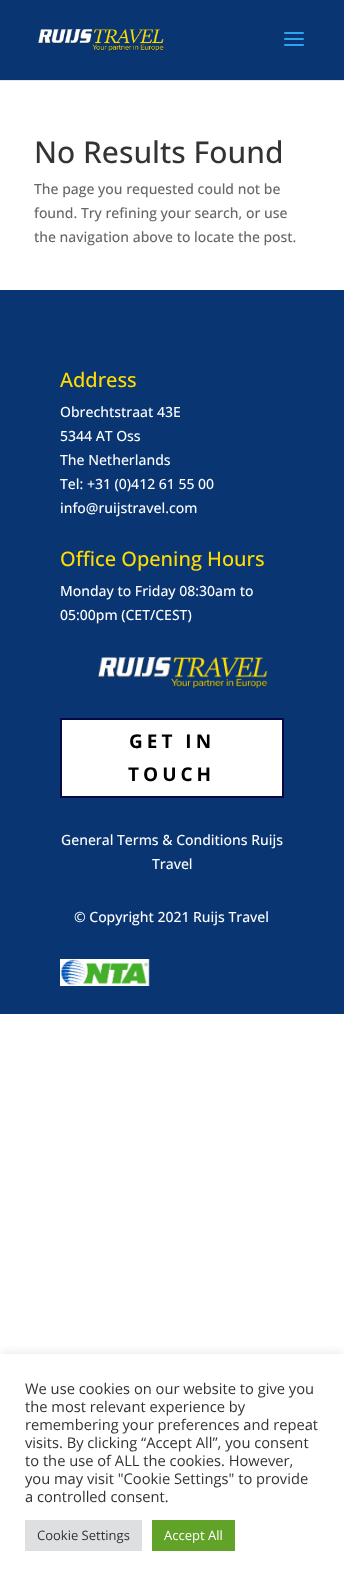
async function draw(canvas) {
  canvas.width = 344
  canvas.height = 1581
  const ctx = canvas.getContext('2d')
  ctx.miterLimit = 4
  ctx.fontKerning = 'normal'
  async function loadImage(src) {
    const img = new Image()
    img.src = src
    await img.decode()
    return img
  }

  ctx.fillStyle = '#fff'
  ctx.fillRect(0, 0, 344, 1581)
  ctx.fillStyle = '#e6e6e6'
  ctx.fillRect(0, 80, 344, 1)
  ctx.fillStyle = '#093573'
  ctx.fillRect(0, 0, 344, 80)
  ctx.drawImage(await loadImage('image0.png'), 38, 29, 126, 22)
  ctx.drawImage(await loadImage('image1.png'), 284, 32, 20, 14)
  ctx.font = '500 30px Open Sans'
  ctx.fillStyle = '#333'
  ctx.fillText('No Results Found', 34, 163)
  ctx.font = '500 14px Open Sans'
  ctx.fillStyle = '#666'
  ctx.fillText('The page you requested could not be', 34, 194)
  ctx.fillText('found. Try refining your search, or use', 34, 218)
  ctx.fillText('the navigation above to locate the post.', 34, 242)
  ctx.fillStyle = '#093573'
  ctx.fillRect(0, 290, 344, 724)
  ctx.font = '500 20px Open Sans'
  ctx.fillStyle = '#ffdd02'
  ctx.fillText('Address', 60, 387)
  ctx.font = '500 14px Open Sans'
  ctx.fillStyle = '#fff'
  ctx.fillText('Obrechtstraat 43E', 60, 417)
  ctx.fillText('5344 AT Oss', 60, 441)
  ctx.fillText('The Netherlands', 60, 465)
  ctx.fillText('Tel: +31 (0)412 61 55 00', 60, 489)
  ctx.fillText('info@ruijstravel.com', 60, 513)
  ctx.font = '500 20px Open Sans'
  ctx.fillStyle = '#ffdd02'
  ctx.fillText('Office Opening Hours', 60, 566)
  ctx.font = '500 14px Open Sans'
  ctx.fillStyle = '#fff'
  ctx.fillText('Monday to Friday 08:30am to', 60, 596)
  ctx.fillText('05:00pm (CET/CEST)', 60, 620)
  ctx.drawImage(await loadImage('image2.png'), 98, 657, 170, 31)
  ctx.beginPath()
  ctx.rect(61, 719, 222, 78)
  ctx.fill()
  ctx.strokeStyle = '#050749'
  ctx.lineWidth = 2
  ctx.stroke()
  ctx.letterSpacing = '4px'
  ctx.font = 'bold 19px Open Sans'
  ctx.fillStyle = '#000'
  ctx.fillText('GET IN', 129, 748)
  ctx.fillText('TOUCH', 128, 781)
  ctx.letterSpacing = '0px'
  ctx.font = '500 14px Open Sans'
  ctx.fillStyle = '#fff'
  ctx.fillText('General Terms & Conditions Ruijs', 61, 845)
  ctx.fillText('Travel', 152, 869)
  ctx.fillText('© Copyright 2021 Ruijs Travel', 74, 922)
  ctx.drawImage(await loadImage('image3.png'), 60, 959, 90, 27)
  ctx.save()
  ctx.beginPath()
  ctx.rect(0, 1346, 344, 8)
  ctx.clip()
  ctx.fillStyle = '#acabab4d'
  ctx.filter = 'blur(5px)'
  ctx.beginPath()
  ctx.rect(0, 1353, 344, 227)
  ctx.fill()
  ctx.filter = 'none'
  ctx.restore()
  ctx.font = '14.7px Open Sans'
  ctx.fillStyle = '#333'
  ctx.fillText('We use cookies on our website to give you', 25, 1394)
  ctx.fillText('the most relevant experience by', 25, 1412)
  ctx.fillText('remembering your preferences and repeat', 25, 1430)
  ctx.fillText('visits. By clicking “Accept All”, you consent', 25, 1448)
  ctx.fillText('to the use of ALL the cookies. However,', 25, 1466)
  ctx.fillText('you may visit "Cookie Settings" to provide', 25, 1484)
  ctx.fillText('a controlled consent.', 25, 1502)
  ctx.fillStyle = '#dedfe0'
  ctx.fillRect(25, 1520, 117, 31)
  ctx.font = '13px Open Sans'
  ctx.fillStyle = '#333'
  ctx.fillText('Cookie Settings', 37, 1540)
  ctx.fillStyle = '#61a229'
  ctx.fillRect(152, 1520, 83, 31)
  ctx.fillStyle = '#fff'
  ctx.fillText('Accept All', 164, 1540)
}

draw(document.querySelector('canvas'))
